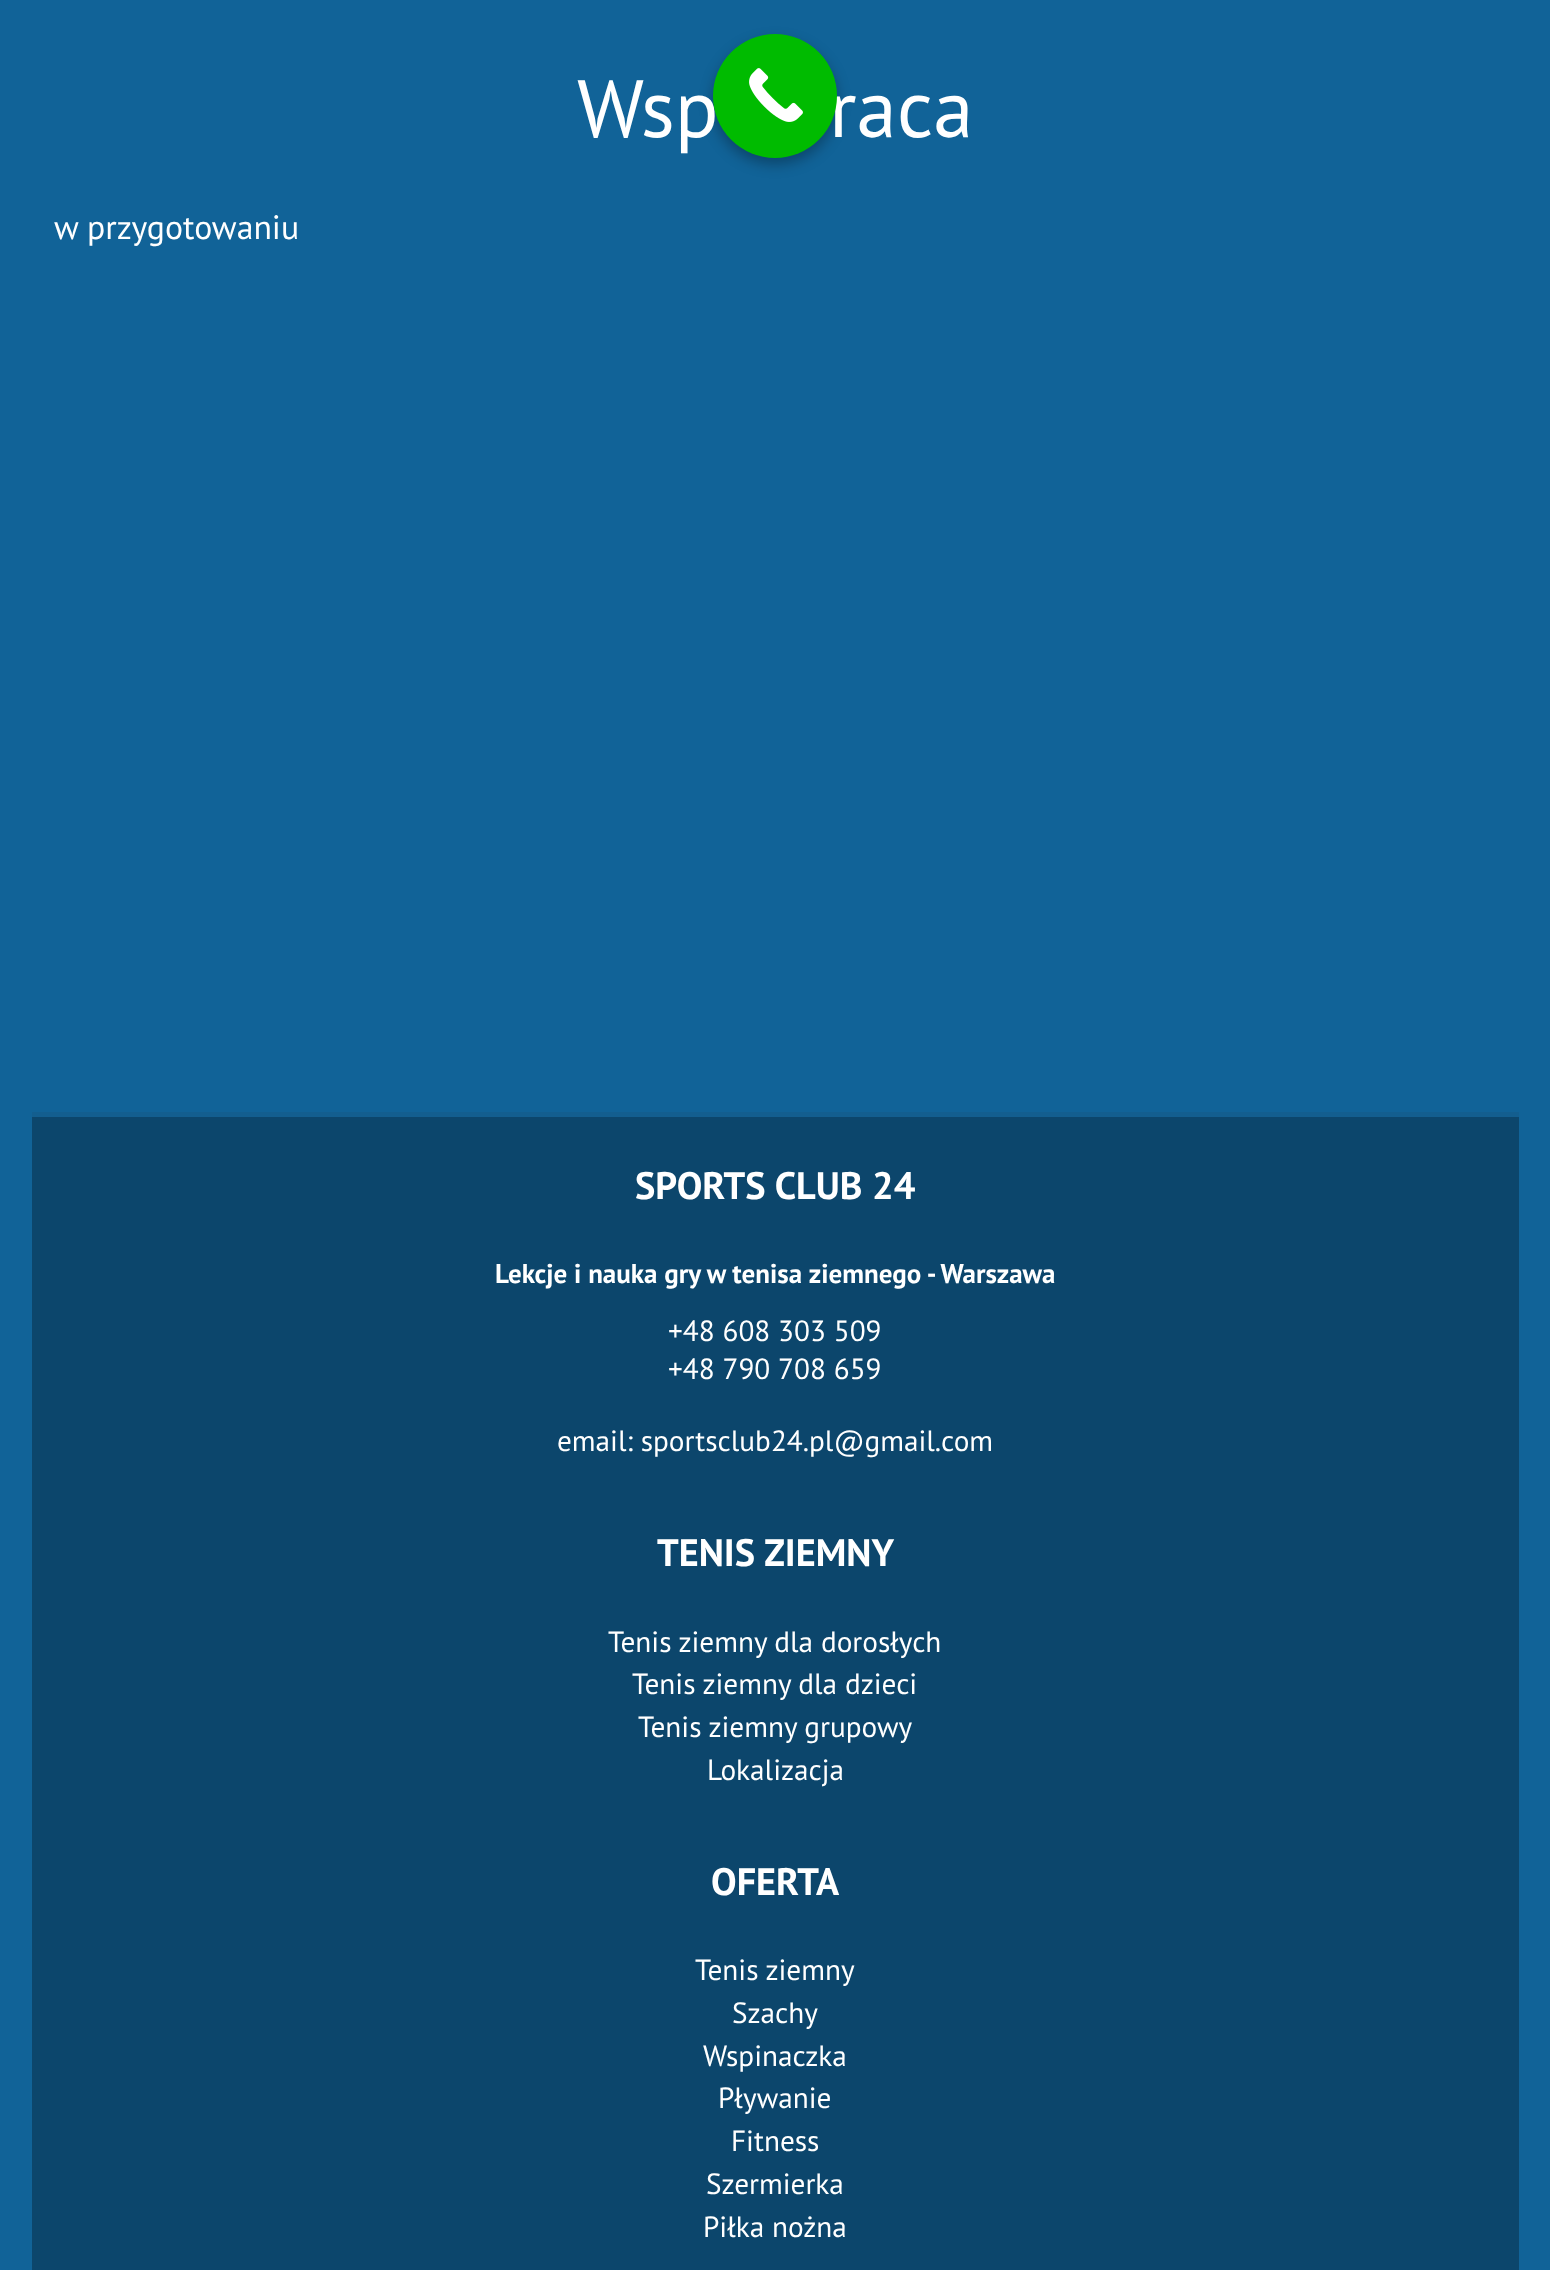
async function draw(canvas) {
  canvas.width = 1550
  canvas.height = 2270
  const ctx = canvas.getContext('2d')
  ctx.miterLimit = 4
  ctx.fontKerning = 'normal'
  async function loadImage(src) {
    const img = new Image()
    img.src = src
    await img.decode()
    return img
  }

  ctx.fillStyle = '#116398'
  ctx.fillRect(0, 0, 1550, 2270)
  ctx.fillStyle = '#0000004d'
  ctx.filter = 'blur(7px)'
  ctx.beginPath()
  ctx.roundRect(713, 41, 124, 123, 61.5)
  ctx.fill()
  ctx.filter = 'none'
  ctx.font = '81px PT Sans'
  ctx.fillStyle = '#fff'
  ctx.fillText('Wsp', 577, 137)
  ctx.fillText('raca', 829, 137)
  ctx.fillStyle = '#0b0'
  ctx.beginPath()
  ctx.arc(775, 96, 62, 0, 2 * Math.PI)
  ctx.fill()
  ctx.drawImage(await loadImage('image0.png'), 749, 68, 54, 54)
  ctx.font = '33.75px PT Sans'
  ctx.fillStyle = '#fff'
  ctx.fillText('w przygotowaniu', 54, 239)
  ctx.fillStyle = '#0c466c'
  ctx.fillRect(32, 1117, 1487, 1153)
  ctx.fillStyle = '#135e8f'
  ctx.fillRect(32, 1112, 1487, 5)
  ctx.font = 'bold 38.25px PT Sans'
  ctx.fillStyle = '#fff'
  ctx.fillText('SPORTS CLUB 24', 635, 1199)
  ctx.font = 'bold 27px PT Sans'
  ctx.fillText('Lekcje i nauka gry w tenisa ziemnego - Warszawa', 495, 1283)
  ctx.font = '29.25px PT Sans'
  ctx.fillText('+48 608 303 509', 668, 1341)
  ctx.fillText('+48 790 708 659', 668, 1379)
  ctx.fillText('email: sportsclub24.pl@gmail.com', 557, 1451)
  ctx.font = 'bold 38.25px PT Sans'
  ctx.fillText('TENIS ZIEMNY', 657, 1566)
  ctx.font = '29.25px PT Sans'
  ctx.fillText('Tenis ziemny dla dorosłych', 608, 1652)
  ctx.fillText('Tenis ziemny dla dzieci', 632, 1694)
  ctx.fillText('Tenis ziemny grupowy', 638, 1737)
  ctx.fillText('Lokalizacja', 707, 1780)
  ctx.font = 'bold 38.25px PT Sans'
  ctx.fillText('OFERTA', 711, 1895)
  ctx.font = '29.25px PT Sans'
  ctx.fillText('Tenis ziemny', 695, 1980)
  ctx.fillText('Szachy', 732, 2023)
  ctx.fillText('Wspinaczka', 703, 2066)
  ctx.fillText('Pływanie', 718, 2108)
  ctx.fillText('Fitness', 731, 2151)
  ctx.fillText('Szermierka', 706, 2194)
  ctx.fillText('Piłka nożna', 703, 2237)
}

draw(document.querySelector('canvas'))
